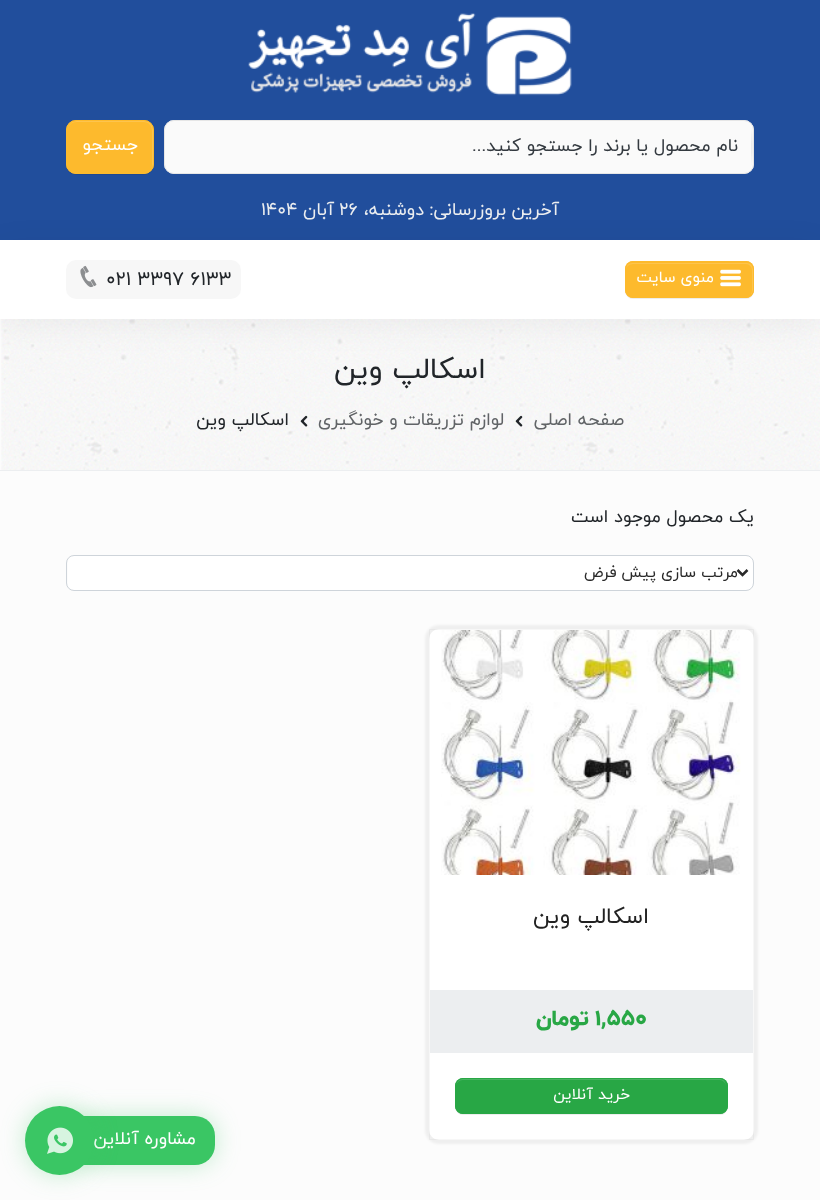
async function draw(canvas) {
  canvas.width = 820
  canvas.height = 1200
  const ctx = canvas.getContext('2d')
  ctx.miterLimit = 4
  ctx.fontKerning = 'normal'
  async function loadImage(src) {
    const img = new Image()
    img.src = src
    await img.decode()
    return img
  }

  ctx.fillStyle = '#fcfcfc'
  ctx.fillRect(0, 0, 820, 1200)
  ctx.fillStyle = '#214e9c'
  ctx.fillRect(0, 0, 820, 240)
  ctx.drawImage(await loadImage('image0.png'), 248, 13, 324, 83)
  ctx.fillStyle = '#fafafa'
  ctx.beginPath()
  ctx.roundRect(164, 120, 590, 54, 10)
  ctx.fill()
  ctx.drawImage(await loadImage('image1.png'), 751, 123, 2, 48)
  ctx.beginPath()
  ctx.roundRect(164.5, 120.5, 589, 53, 9.5)
  ctx.strokeStyle = '#e6e6e6'
  ctx.stroke()
  ctx.direction = 'rtl'
  ctx.font = '18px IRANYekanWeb'
  ctx.fillStyle = '#343a40'
  ctx.fillText('نام محصول یا برند را جستجو کنید...', 738, 151)
  ctx.fillStyle = '#00000012'
  ctx.filter = 'blur(0.5px)'
  ctx.beginPath()
  ctx.roundRect(66, 121, 88, 54, 10)
  ctx.fill()
  ctx.filter = 'none'
  ctx.fillStyle = '#fdba2d'
  ctx.beginPath()
  ctx.roundRect(66, 120, 88, 54, 10)
  ctx.fill()
  ctx.fillStyle = '#fdc44d'
  ctx.beginPath()
  ctx.moveTo(76, 122)
  ctx.lineTo(144, 122)
  ctx.bezierCurveTo(149, 122, 152, 126, 152, 131)
  ctx.lineTo(152, 165)
  ctx.bezierCurveTo(152, 167, 152, 168, 151, 170)
  ctx.bezierCurveTo(152, 168, 153, 166, 153, 164)
  ctx.lineTo(153, 130)
  ctx.bezierCurveTo(153, 125, 149, 121, 144, 121)
  ctx.lineTo(77, 121)
  ctx.bezierCurveTo(72, 121, 68, 125, 68, 130)
  ctx.lineTo(68, 131)
  ctx.bezierCurveTo(68, 126, 71, 122, 76, 122)
  ctx.closePath()
  ctx.fill()
  ctx.beginPath()
  ctx.roundRect(66.5, 120.5, 87, 53, 9.5)
  ctx.strokeStyle = '#fdba2d'
  ctx.stroke()
  ctx.fillStyle = '#fff'
  ctx.fillText('جستجو', 138, 150)
  ctx.fillStyle = '#eceef0'
  ctx.fillText('آخرین بروزرسانی:', 559, 215)
  ctx.font = '18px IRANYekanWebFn'
  ctx.fillText('دوشنبه،', 424, 215)
  ctx.direction = 'ltr'
  ctx.fillText('۲۶', 339, 215)
  ctx.direction = 'rtl'
  ctx.fillText('آبان', 334, 215)
  ctx.direction = 'ltr'
  ctx.fillText('۱۴۰۴', 261, 215)
  ctx.drawImage(await loadImage('image4.png'), 1, 319, 819, 151)
  ctx.fillStyle = '#0000000d'
  ctx.filter = 'blur(15.5px)'
  ctx.beginPath()
  ctx.rect(0, 246, 820, 79)
  ctx.fill()
  ctx.filter = 'none'
  ctx.fillStyle = '#fff'
  ctx.fillRect(0, 240, 820, 79)
  ctx.fillStyle = '#00000012'
  ctx.filter = 'blur(0.5px)'
  ctx.beginPath()
  ctx.roundRect(625, 263, 129, 36, 8)
  ctx.fill()
  ctx.filter = 'none'
  ctx.fillStyle = '#fdba2d'
  ctx.beginPath()
  ctx.roundRect(625, 261, 129, 37, 8)
  ctx.fill()
  ctx.fillStyle = '#fdc44d'
  ctx.beginPath()
  ctx.moveTo(633, 264)
  ctx.lineTo(746, 264)
  ctx.bezierCurveTo(749, 264, 752, 267, 752, 270)
  ctx.lineTo(752, 291)
  ctx.lineTo(751, 295)
  ctx.bezierCurveTo(752, 294, 753, 292, 753, 290)
  ctx.lineTo(753, 269)
  ctx.bezierCurveTo(753, 266, 750, 263, 747, 263)
  ctx.lineTo(632, 263)
  ctx.bezierCurveTo(629, 263, 626, 266, 626, 269)
  ctx.lineTo(626, 270)
  ctx.bezierCurveTo(626, 267, 629, 264, 633, 264)
  ctx.closePath()
  ctx.fill()
  ctx.beginPath()
  ctx.roundRect(625.5, 261.5, 128, 36, 7.5)
  ctx.stroke()
  ctx.drawImage(await loadImage('image2.png'), 720, 269, 21, 18)
  ctx.direction = 'rtl'
  ctx.font = '15.75px IRANYekanWeb'
  ctx.fillStyle = '#fff'
  ctx.fillText('منوی سایت', 714, 282)
  ctx.fillStyle = '#f7f7f7'
  ctx.beginPath()
  ctx.roundRect(66, 260, 175, 39, 10)
  ctx.fill()
  ctx.direction = 'ltr'
  ctx.font = '19.5px IRANYekanWebFn'
  ctx.fillStyle = '#212529'
  ctx.fillText('021 3397 6133', 106, 285)
  ctx.drawImage(await loadImage('image3.png'), 80, 265, 17, 23)
  ctx.fillStyle = '#eceef0'
  ctx.fillRect(0, 470, 820, 1)
  ctx.direction = 'rtl'
  ctx.font = '29.5px IRANYekanWeb'
  ctx.fillStyle = '#212529'
  ctx.fillText('اسکالپ وین', 486, 378)
  ctx.font = '18px IRANYekanWeb'
  ctx.fillStyle = '#616467'
  ctx.fillText('صفحه اصلی', 624, 425)
  ctx.drawImage(await loadImage('image5.png'), 515, 415, 8, 12)
  ctx.fillText('لوازم تزریقات و خونگیری', 504, 425)
  ctx.drawImage(await loadImage('image6.png'), 300, 415, 8, 12)
  ctx.fillStyle = '#212529'
  ctx.fillText('اسکالپ وین', 289, 425)
  ctx.font = '18px IRANYekanWebFn'
  ctx.fillText('یک محصول موجود است', 754, 522)
  ctx.fillStyle = '#fff'
  ctx.beginPath()
  ctx.roundRect(68, 556, 685, 34, 6)
  ctx.fill()
  ctx.beginPath()
  ctx.roundRect(66.5, 555.5, 687, 35, 7.5)
  ctx.strokeStyle = '#ced4da'
  ctx.stroke()
  ctx.beginPath()
  ctx.moveTo(737.5, 570)
  ctx.lineTo(742.5, 575)
  ctx.lineTo(747.5, 570)
  ctx.strokeStyle = '#292929'
  ctx.lineWidth = 2.5
  ctx.stroke()
  ctx.font = '15.75px IRANYekanWebFn'
  ctx.fillStyle = '#292929'
  ctx.fillText('مرتب سازی پیش فرض', 738, 577)
  ctx.fillStyle = '#0000000d'
  ctx.filter = 'blur(1px)'
  ctx.beginPath()
  ctx.roundRect(425, 625, 333, 519, 14)
  ctx.fill()
  ctx.filter = 'none'
  ctx.fillStyle = '#fff'
  ctx.beginPath()
  ctx.roundRect(429, 629, 325, 511, 10)
  ctx.fill()
  ctx.strokeStyle = '#00000008'
  ctx.lineWidth = 1
  ctx.strokeRect(429.5, 629.5, 324, 510)
  ctx.drawImage(await loadImage('image7.png'), 441, 630, 300, 245)
  ctx.font = '22.5px IRANYekanWeb'
  ctx.fillStyle = '#222'
  ctx.fillText('اسکالپ وین', 649, 923)
  ctx.fillStyle = '#eceef0'
  ctx.fillRect(430, 990, 323, 63)
  ctx.direction = 'ltr'
  ctx.font = '800 22px IRANYekanWebFn'
  ctx.fillStyle = '#28a745'
  ctx.fillText('۱,۵۵۰', 595, 1025)
  ctx.direction = 'rtl'
  ctx.fillText('تومان', 589, 1025)
  ctx.fillStyle = '#00000012'
  ctx.filter = 'blur(0.5px)'
  ctx.beginPath()
  ctx.roundRect(455, 1079, 273, 36, 8)
  ctx.fill()
  ctx.filter = 'none'
  ctx.fillStyle = '#28a745'
  ctx.beginPath()
  ctx.roundRect(455, 1078, 273, 36, 8)
  ctx.fill()
  ctx.fillStyle = '#48b461'
  ctx.beginPath()
  ctx.moveTo(463, 1080)
  ctx.lineTo(720, 1080)
  ctx.bezierCurveTo(723, 1080, 726, 1083, 726, 1087)
  ctx.bezierCurveTo(726, 1084, 725, 1080, 721, 1079)
  ctx.lineTo(461, 1079)
  ctx.bezierCurveTo(457, 1080, 456, 1084, 456, 1087)
  ctx.bezierCurveTo(456, 1083, 459, 1080, 463, 1080)
  ctx.closePath()
  ctx.fill()
  ctx.beginPath()
  ctx.roundRect(455.5, 1078.5, 272, 35, 7.5)
  ctx.strokeStyle = '#28a745'
  ctx.stroke()
  ctx.font = '15.75px IRANYekanWeb'
  ctx.fillStyle = '#fff'
  ctx.fillText('خرید آنلاین', 630, 1099)
  ctx.fillStyle = '#3ac6644d'
  ctx.filter = 'blur(12.5px)'
  ctx.beginPath()
  ctx.roundRect(75, 1116, 140, 49, 20)
  ctx.fill()
  ctx.filter = 'none'
  ctx.fillStyle = '#3ac664'
  ctx.beginPath()
  ctx.roundRect(75, 1116, 140, 49, [0, 20, 20, 0])
  ctx.fill()
  ctx.font = '18px IRANYekanWeb'
  ctx.fillStyle = '#fff'
  ctx.fillText('مشاوره آنلاین', 196, 1144)
  ctx.fillStyle = '#3ac6644d'
  ctx.filter = 'blur(12.5px)'
  ctx.beginPath()
  ctx.roundRect(25, 1106, 69, 69, 34.5)
  ctx.fill()
  ctx.filter = 'none'
  ctx.fillStyle = '#3ac664'
  ctx.beginPath()
  ctx.arc(59.5, 1140.5, 34.5, 0, 2 * Math.PI)
  ctx.fill()
  ctx.drawImage(await loadImage('image8.png'), 47, 1127, 26, 27)
}

draw(document.querySelector('canvas'))
